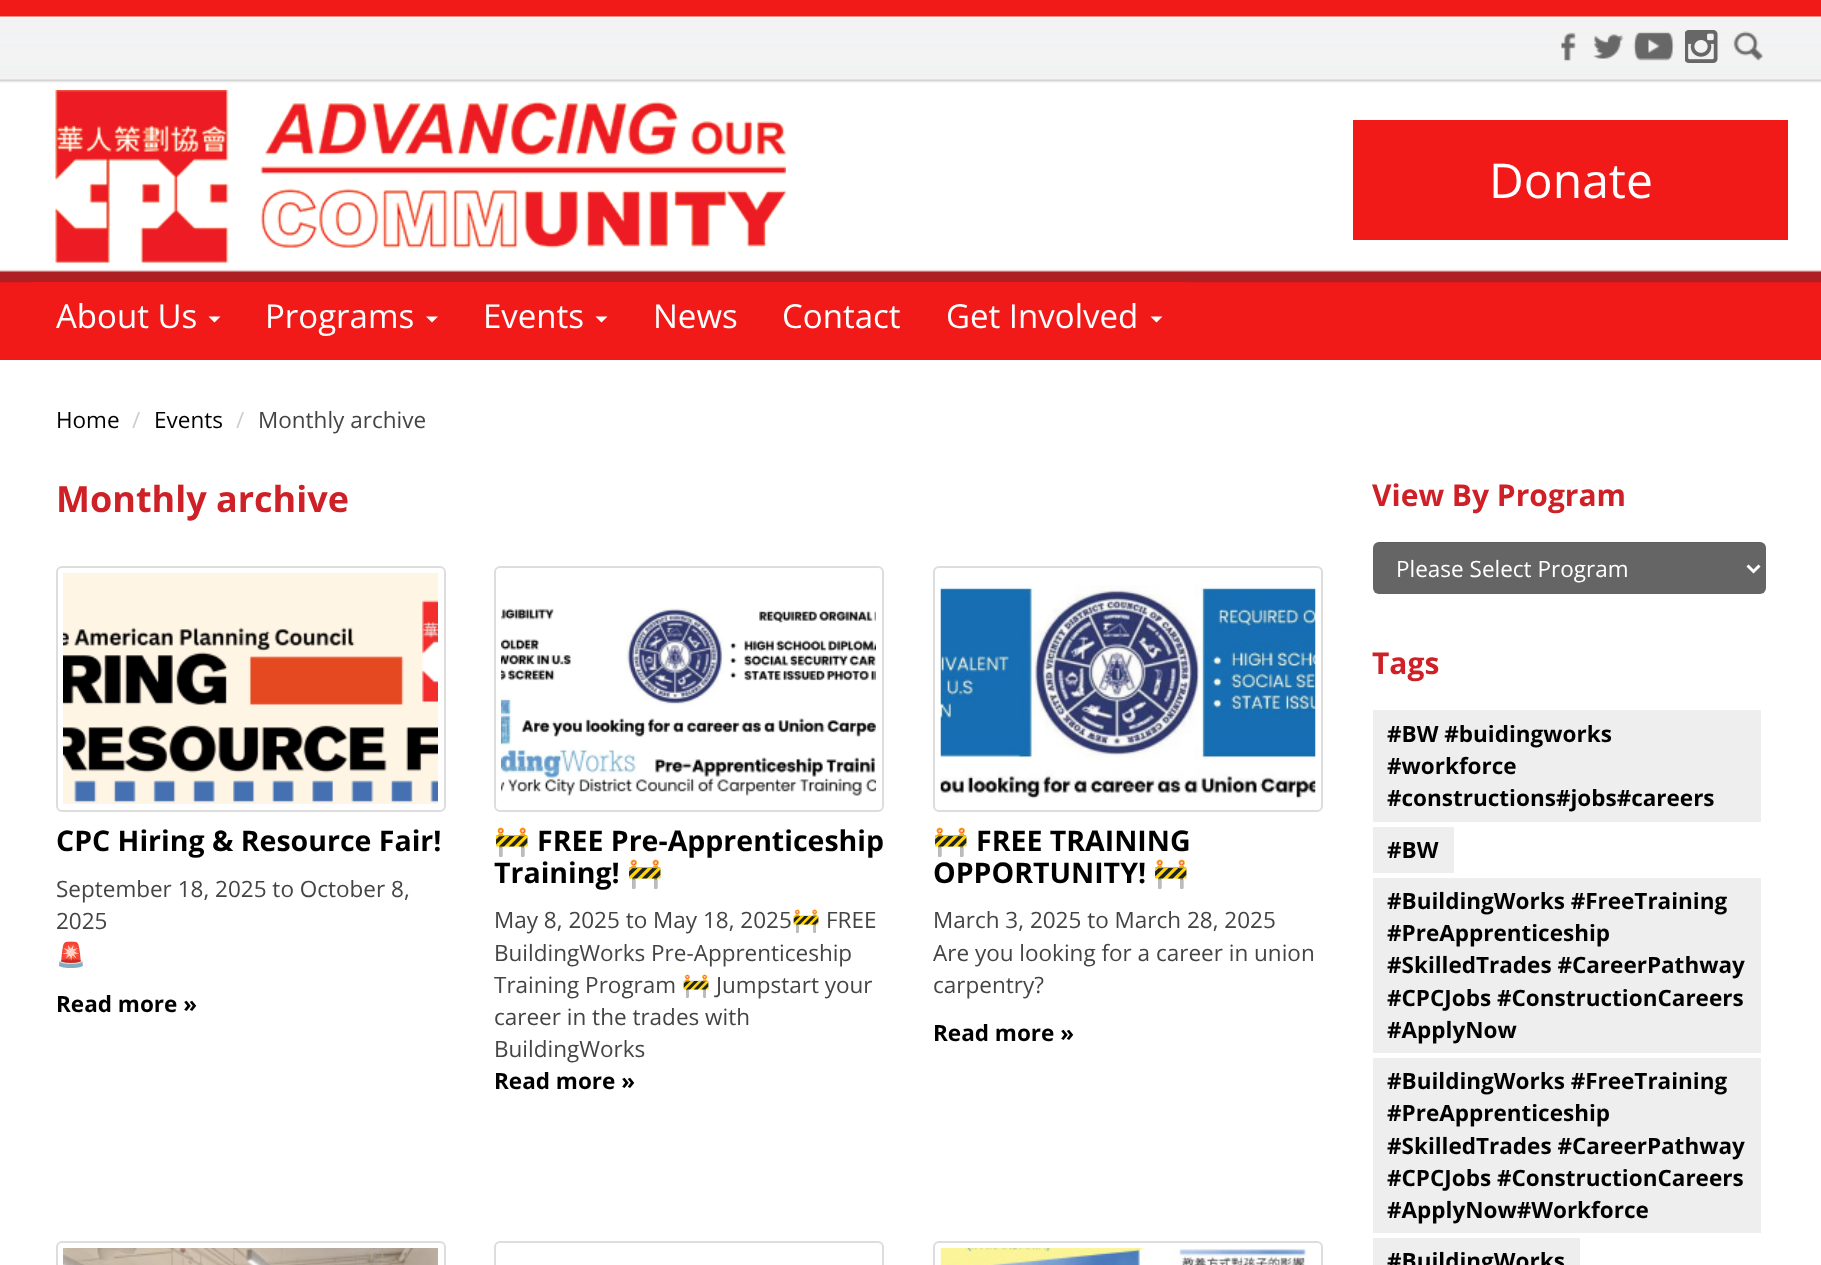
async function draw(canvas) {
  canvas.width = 1821
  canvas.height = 1265
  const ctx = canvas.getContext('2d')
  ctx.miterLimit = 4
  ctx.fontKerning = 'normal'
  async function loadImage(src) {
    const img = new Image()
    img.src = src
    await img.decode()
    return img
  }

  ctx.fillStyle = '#fff'
  ctx.fillRect(0, 0, 1821, 1265)
  ctx.drawImage(await loadImage('image0.png'), 0, 0, 1821, 360)
  ctx.drawImage(await loadImage('image1.png'), 1561, 32, 15, 30)
  ctx.drawImage(await loadImage('image2.png'), 1593, 34, 31, 25)
  ctx.drawImage(await loadImage('image3.png'), 1633, 31, 41, 30)
  ctx.drawImage(await loadImage('image4.png'), 1685, 30, 33, 33)
  ctx.drawImage(await loadImage('image5.png'), 1733, 31, 30, 30)
  ctx.drawImage(await loadImage('image6.png'), 55, 90, 731, 173)
  ctx.fillStyle = '#f11a18'
  ctx.fillRect(1353, 120, 435, 120)
  ctx.font = '48px Open Sans'
  ctx.fillStyle = '#fff'
  ctx.fillText('Donate', 1489, 198)
  ctx.fillStyle = '#f11a18'
  ctx.fillRect(33, 282, 1152, 1)
  ctx.font = '33px Open Sans'
  ctx.fillStyle = '#fff'
  ctx.fillText('About Us', 56, 328)
  ctx.beginPath()
  ctx.moveTo(208.5, 316.5)
  ctx.lineTo(220.5, 316.5)
  ctx.lineTo(214.5, 322.5)
  ctx.closePath()
  ctx.fill()
  ctx.fillText('Programs', 265, 328)
  ctx.beginPath()
  ctx.moveTo(426, 316.5)
  ctx.lineTo(438, 316.5)
  ctx.lineTo(432, 322.5)
  ctx.closePath()
  ctx.fill()
  ctx.fillText('Events', 483, 328)
  ctx.beginPath()
  ctx.moveTo(595.5, 316.5)
  ctx.lineTo(607.5, 316.5)
  ctx.lineTo(601.5, 322.5)
  ctx.closePath()
  ctx.fill()
  ctx.fillText('News', 653, 328)
  ctx.fillText('Contact', 782, 328)
  ctx.fillText('Get Involved', 946, 328)
  ctx.beginPath()
  ctx.moveTo(1150.5, 316.5)
  ctx.lineTo(1162.5, 316.5)
  ctx.lineTo(1156.5, 322.5)
  ctx.closePath()
  ctx.fill()
  ctx.font = '22.5px Open Sans'
  ctx.fillStyle = '#000'
  ctx.fillText('Home', 56, 428)
  ctx.fillStyle = '#ccc'
  ctx.fillText('/', 132, 428)
  ctx.fillStyle = '#000'
  ctx.fillText('Events', 154, 428)
  ctx.fillStyle = '#ccc'
  ctx.fillText('/', 236, 428)
  ctx.fillStyle = '#444'
  ctx.fillText('Monthly archive', 258, 428)
  ctx.font = 'bold 36px Open Sans'
  ctx.fillStyle = '#ce2127'
  ctx.fillText('Monthly archive', 56, 512)
  ctx.beginPath()
  ctx.roundRect(57, 567, 388, 244, 5)
  ctx.strokeStyle = '#ddd'
  ctx.lineWidth = 2
  ctx.stroke()
  ctx.drawImage(await loadImage('image7.png'), 63, 573, 375, 231)
  ctx.font = 'bold 28.5px Open Sans'
  ctx.fillStyle = '#000'
  ctx.fillText('CPC Hiring & Resource Fair!', 56, 851)
  ctx.font = '22.5px Open Sans'
  ctx.fillStyle = '#444'
  ctx.fillText('September 18, 2025 to October 8,', 56, 897)
  ctx.fillText('2025', 56, 929)
  ctx.font = '24px Noto Color Emoji'
  ctx.fillText('🚨', 56, 963)
  ctx.font = 'bold 22.5px Open Sans'
  ctx.fillStyle = '#000'
  ctx.fillText('Read more »', 56, 1012)
  ctx.beginPath()
  ctx.roundRect(495, 567, 388, 244, 5)
  ctx.stroke()
  ctx.drawImage(await loadImage('image8.png'), 501, 608, 375, 188)
  ctx.font = 'bold 28.5px Noto Color Emoji'
  ctx.fillText('🚧', 494, 851)
  ctx.font = 'bold 28.5px Open Sans'
  ctx.fillText('FREE Pre-Apprenticeship', 537, 851)
  ctx.fillText('Training!', 494, 883)
  ctx.font = 'bold 28.5px Noto Color Emoji'
  ctx.fillText('🚧', 627, 883)
  ctx.font = '22.5px Open Sans'
  ctx.fillStyle = '#444'
  ctx.fillText('May 8, 2025 to May 18, 2025', 494, 928)
  ctx.font = '22.5px Noto Color Emoji'
  ctx.fillText('🚧', 792, 928)
  ctx.font = '22.5px Open Sans'
  ctx.fillText('FREE', 826, 928)
  ctx.fillText('BuildingWorks Pre-Apprenticeship', 494, 961)
  ctx.fillText('Training Program', 494, 993)
  ctx.font = '22.5px Noto Color Emoji'
  ctx.fillText('🚧', 682, 993)
  ctx.font = '22.5px Open Sans'
  ctx.fillText('Jumpstart your', 716, 993)
  ctx.fillText('career in the trades with', 494, 1025)
  ctx.fillText('BuildingWorks', 494, 1057)
  ctx.font = 'bold 22.5px Open Sans'
  ctx.fillStyle = '#000'
  ctx.fillText('Read more »', 494, 1089)
  ctx.beginPath()
  ctx.roundRect(934, 567, 388, 244, 5)
  ctx.stroke()
  ctx.drawImage(await loadImage('image9.png'), 940, 585, 376, 214)
  ctx.font = 'bold 28.5px Noto Color Emoji'
  ctx.fillText('🚧', 933, 851)
  ctx.font = 'bold 28.5px Open Sans'
  ctx.fillText('FREE TRAINING', 976, 851)
  ctx.fillText('OPPORTUNITY!', 933, 883)
  ctx.font = 'bold 28.5px Noto Color Emoji'
  ctx.fillText('🚧', 1153, 883)
  ctx.font = '22.5px Open Sans'
  ctx.fillStyle = '#444'
  ctx.fillText('March 3, 2025 to March 28, 2025', 933, 928)
  ctx.fillText('Are you looking for a career in union', 933, 961)
  ctx.fillText('carpentry?', 933, 993)
  ctx.font = 'bold 22.5px Open Sans'
  ctx.fillStyle = '#000'
  ctx.fillText('Read more »', 933, 1041)
  ctx.beginPath()
  ctx.roundRect(57, 1242, 388, 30, 5)
  ctx.stroke()
  ctx.drawImage(await loadImage('image10.png'), 63, 1248, 375, 17)
  ctx.beginPath()
  ctx.roundRect(495, 1242, 388, 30, 5)
  ctx.stroke()
  ctx.beginPath()
  ctx.roundRect(934, 1242, 388, 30, 5)
  ctx.stroke()
  ctx.drawImage(await loadImage('image11.png'), 940, 1248, 368, 17)
  ctx.font = 'bold 30px Open Sans'
  ctx.fillStyle = '#ce2127'
  ctx.fillText('View By Program', 1372, 506)
  ctx.fillStyle = '#656565'
  ctx.beginPath()
  ctx.roundRect(1373, 542, 393, 52, 6)
  ctx.fill()
  ctx.fillStyle = '#00000012'
  ctx.beginPath()
  ctx.moveTo(1378, 543)
  ctx.lineTo(1760, 543)
  ctx.bezierCurveTo(1763, 543, 1766, 546, 1766, 549)
  ctx.lineTo(1766, 548)
  ctx.bezierCurveTo(1766, 545, 1763, 542, 1760, 542)
  ctx.lineTo(1379, 542)
  ctx.bezierCurveTo(1377, 542, 1375, 543, 1374, 545)
  ctx.bezierCurveTo(1375, 544, 1377, 543, 1378, 543)
  ctx.closePath()
  ctx.fill()
  ctx.beginPath()
  ctx.moveTo(1747.5, 565.5)
  ctx.lineTo(1753.5, 571.5)
  ctx.lineTo(1759.5, 565.5)
  ctx.strokeStyle = '#fff'
  ctx.lineWidth = 3
  ctx.stroke()
  ctx.font = '22.5px Open Sans'
  ctx.fillStyle = '#fff'
  ctx.fillText('Please Select Program', 1396, 577)
  ctx.font = 'bold 30px Open Sans'
  ctx.fillStyle = '#ce2127'
  ctx.fillText('Tags', 1372, 674)
  ctx.fillStyle = '#eee'
  ctx.fillRect(1373, 710, 388, 112)
  ctx.font = 'bold 22.5px Open Sans'
  ctx.fillStyle = '#000'
  ctx.fillText('#BW #buidingworks', 1387, 742)
  ctx.fillText('#workforce', 1387, 774)
  ctx.fillText('#constructions#jobs#careers', 1387, 806)
  ctx.fillStyle = '#eee'
  ctx.fillRect(1373, 827, 81, 46)
  ctx.fillStyle = '#000'
  ctx.fillText('#BW', 1387, 858)
  ctx.fillStyle = '#eee'
  ctx.fillRect(1373, 878, 388, 175)
  ctx.fillStyle = '#000'
  ctx.fillText('#BuildingWorks #FreeTraining', 1387, 909)
  ctx.fillText('#PreApprenticeship', 1387, 941)
  ctx.fillText('#SkilledTrades #CareerPathway', 1387, 973)
  ctx.fillText('#CPCJobs #ConstructionCareers', 1387, 1006)
  ctx.fillText('#ApplyNow', 1387, 1038)
  ctx.fillStyle = '#eee'
  ctx.fillRect(1373, 1058, 388, 175)
  ctx.fillStyle = '#000'
  ctx.fillText('#BuildingWorks #FreeTraining', 1387, 1089)
  ctx.fillText('#PreApprenticeship', 1387, 1121)
  ctx.fillText('#SkilledTrades #CareerPathway', 1387, 1154)
  ctx.fillText('#CPCJobs #ConstructionCareers', 1387, 1186)
  ctx.fillText('#ApplyNow#Workforce', 1387, 1218)
  ctx.fillStyle = '#eee'
  ctx.fillRect(1373, 1238, 207, 27)
  ctx.fillStyle = '#000'
  ctx.fillText('#BuildingWorks', 1387, 1269)
}

draw(document.querySelector('canvas'))
